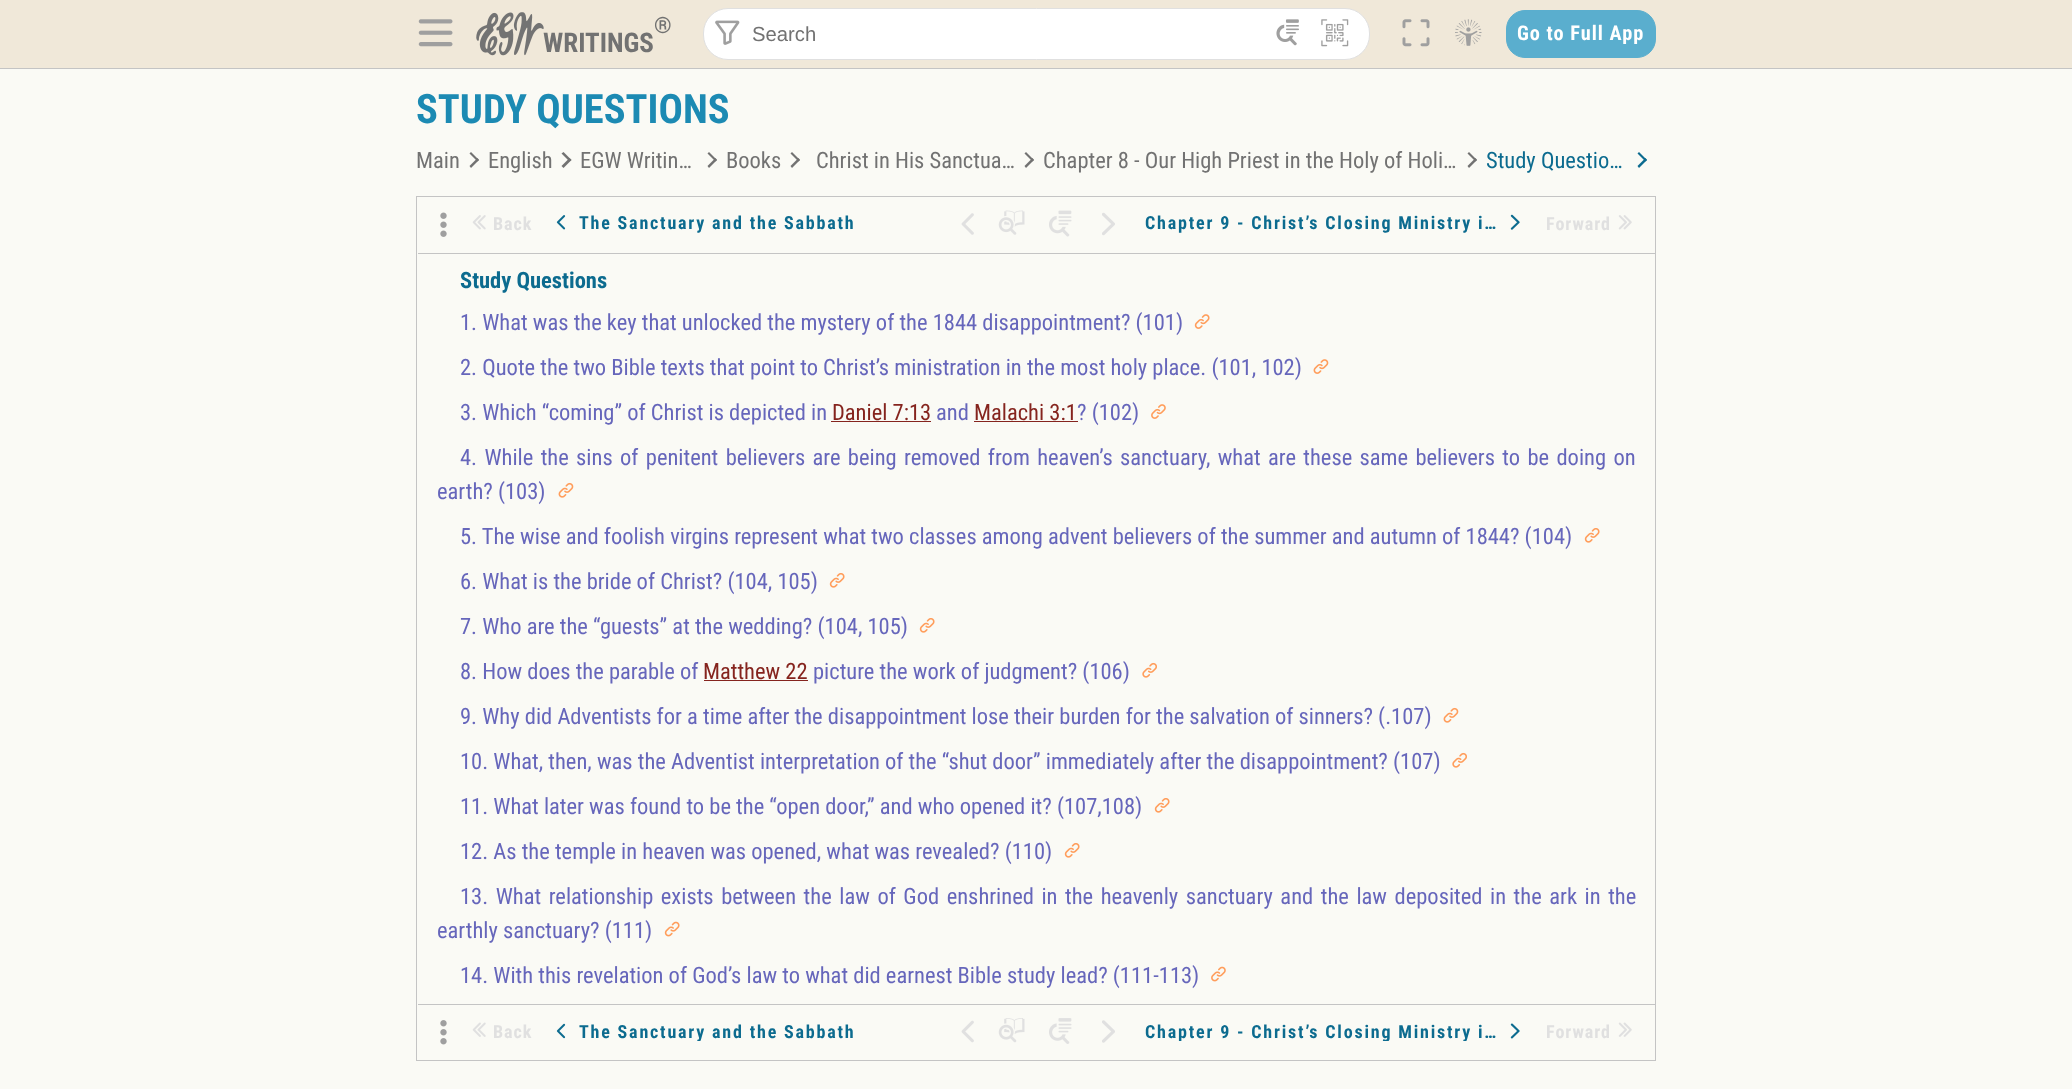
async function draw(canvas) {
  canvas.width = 2072
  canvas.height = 1089
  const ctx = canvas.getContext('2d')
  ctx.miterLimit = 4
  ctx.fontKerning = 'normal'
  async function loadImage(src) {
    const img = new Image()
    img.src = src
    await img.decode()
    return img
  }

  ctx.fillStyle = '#fafaf5'
  ctx.fillRect(0, 0, 2072, 1089)
  ctx.fillStyle = '#f0e8d9'
  ctx.fillRect(0, 0, 2072, 68)
  ctx.fillStyle = '#c4c4c4'
  ctx.fillRect(0, 68, 2072, 1)
  ctx.drawImage(await loadImage('image0.png'), 418, 19, 35, 28)
  ctx.drawImage(await loadImage('image1.png'), 476, 12, 68, 44)
  ctx.font = 'bold 22.5px Roboto Condensed'
  ctx.fillStyle = '#727272'
  ctx.fillText('®', 654, 33)
  ctx.font = 'bold 27px Roboto Condensed'
  ctx.fillText('WRITINGS', 543, 52)
  ctx.fillStyle = '#fff'
  ctx.beginPath()
  ctx.roundRect(703.5, 8.5, 666, 51, 24.5)
  ctx.fill()
  ctx.strokeStyle = '#e0e0e0'
  ctx.stroke()
  ctx.drawImage(await loadImage('image2.png'), 715, 20, 25, 25)
  ctx.font = '20.25px Liberation Sans'
  ctx.fillStyle = '#727272'
  ctx.fillText('Search', 752, 41)
  ctx.drawImage(await loadImage('image3.png'), 1276, 19, 23, 27)
  ctx.drawImage(await loadImage('image4.png'), 1321, 19, 28, 28)
  ctx.drawImage(await loadImage('image5.png'), 1402, 19, 28, 28)
  ctx.drawImage(await loadImage('image6.png'), 1455, 19, 27, 27)
  ctx.fillStyle = '#5aaece'
  ctx.beginPath()
  ctx.roundRect(1506.5, 10.5, 149, 47, 18.5)
  ctx.fill()
  ctx.strokeStyle = '#5aaece'
  ctx.stroke()
  ctx.letterSpacing = '1px'
  ctx.font = 'bold 20.25px Roboto Condensed'
  ctx.fillStyle = '#fff'
  ctx.fillText('Go to Full App', 1517, 40)
  ctx.letterSpacing = '0px'
  ctx.font = 'bold 40.5px Roboto Condensed'
  ctx.fillStyle = '#1c8ab3'
  ctx.fillText('STUDY QUESTIONS', 416, 123)
  ctx.font = '22.5px Roboto Condensed'
  ctx.fillStyle = '#727272'
  ctx.fillText('Main', 416, 168)
  ctx.beginPath()
  ctx.moveTo(469.5, 153.5)
  ctx.lineTo(471, 152)
  ctx.lineTo(479, 160)
  ctx.lineTo(477.5, 161.5)
  ctx.closePath()
  ctx.fill()
  ctx.beginPath()
  ctx.moveTo(469.5, 166)
  ctx.lineTo(477.5, 158)
  ctx.lineTo(479, 160)
  ctx.lineTo(471, 168)
  ctx.closePath()
  ctx.fill()
  ctx.fillText('English', 488, 168)
  ctx.beginPath()
  ctx.moveTo(561.5, 153.5)
  ctx.lineTo(563.5, 152)
  ctx.lineTo(571.5, 160)
  ctx.lineTo(569.5, 161.5)
  ctx.closePath()
  ctx.fill()
  ctx.beginPath()
  ctx.moveTo(561.5, 166)
  ctx.lineTo(569.5, 158)
  ctx.lineTo(571.5, 160)
  ctx.lineTo(563.5, 168)
  ctx.closePath()
  ctx.fill()
  ctx.fillText('EGW Writin…', 580, 168)
  ctx.beginPath()
  ctx.moveTo(707.5, 153.5)
  ctx.lineTo(709, 152)
  ctx.lineTo(717, 160)
  ctx.lineTo(715.5, 161.5)
  ctx.closePath()
  ctx.fill()
  ctx.beginPath()
  ctx.moveTo(707.5, 166)
  ctx.lineTo(715.5, 158)
  ctx.lineTo(717, 160)
  ctx.lineTo(709, 168)
  ctx.closePath()
  ctx.fill()
  ctx.fillText('Books', 726, 168)
  ctx.beginPath()
  ctx.moveTo(790.5, 153.5)
  ctx.lineTo(792, 152)
  ctx.lineTo(800, 160)
  ctx.lineTo(798.5, 161.5)
  ctx.closePath()
  ctx.fill()
  ctx.beginPath()
  ctx.moveTo(790.5, 166)
  ctx.lineTo(798.5, 158)
  ctx.lineTo(800, 160)
  ctx.lineTo(792, 168)
  ctx.closePath()
  ctx.fill()
  ctx.fillText('Christ in His Sanctua…', 816, 168)
  ctx.beginPath()
  ctx.moveTo(1024.5, 153.5)
  ctx.lineTo(1026, 152)
  ctx.lineTo(1034, 160)
  ctx.lineTo(1032.5, 161.5)
  ctx.closePath()
  ctx.fill()
  ctx.beginPath()
  ctx.moveTo(1024.5, 166)
  ctx.lineTo(1032.5, 158)
  ctx.lineTo(1034, 160)
  ctx.lineTo(1026, 168)
  ctx.closePath()
  ctx.fill()
  ctx.fillText('Chapter 8 - Our High Priest in the Holy of Holi…', 1043, 168)
  ctx.beginPath()
  ctx.moveTo(1467.5, 153.5)
  ctx.lineTo(1469, 152)
  ctx.lineTo(1477, 160)
  ctx.lineTo(1475.5, 161.5)
  ctx.closePath()
  ctx.fill()
  ctx.beginPath()
  ctx.moveTo(1467.5, 166)
  ctx.lineTo(1475.5, 158)
  ctx.lineTo(1477, 160)
  ctx.lineTo(1469, 168)
  ctx.closePath()
  ctx.fill()
  ctx.fillStyle = '#0c6b8f'
  ctx.fillText('Study Questio…', 1486, 168)
  ctx.beginPath()
  ctx.moveTo(1637.5, 153.5)
  ctx.lineTo(1639, 152)
  ctx.lineTo(1647, 160)
  ctx.lineTo(1645.5, 161.5)
  ctx.closePath()
  ctx.fill()
  ctx.beginPath()
  ctx.moveTo(1637.5, 166)
  ctx.lineTo(1645.5, 158)
  ctx.lineTo(1647, 160)
  ctx.lineTo(1639, 168)
  ctx.closePath()
  ctx.fill()
  ctx.strokeStyle = '#c4c4c4'
  ctx.strokeRect(416.5, 196.5, 1239, 864)
  ctx.fillStyle = '#c4c4c4'
  ctx.fillRect(418, 253, 1237, 1)
  ctx.drawImage(await loadImage('image7.png'), 440, 212, 7, 25)
  ctx.drawImage(await loadImage('image8.png'), 472, 215, 14, 15)
  ctx.letterSpacing = '1px'
  ctx.font = 'bold 18px Roboto Condensed'
  ctx.fillStyle = '#e0e0e0'
  ctx.fillText('Back', 493, 230)
  ctx.drawImage(await loadImage('image9.png'), 556, 215, 10, 15)
  ctx.letterSpacing = '1.8px'
  ctx.fillStyle = '#0c6b8f'
  ctx.fillText('The Sanctuary and the Sabbath', 579, 229)
  ctx.drawImage(await loadImage('image10.png'), 961, 213, 13, 22)
  ctx.drawImage(await loadImage('image11.png'), 998, 210, 27, 25)
  ctx.drawImage(await loadImage('image12.png'), 1049, 210, 23, 27)
  ctx.drawImage(await loadImage('image13.png'), 1102, 212, 13, 24)
  ctx.fillText('Chapter 9 - Christ’s Closing Ministry i…', 1145, 229)
  ctx.drawImage(await loadImage('image14.png'), 1510, 214, 10, 16)
  ctx.letterSpacing = '1px'
  ctx.fillStyle = '#e0e0e0'
  ctx.fillText('Forward', 1546, 230)
  ctx.drawImage(await loadImage('image15.png'), 1618, 215, 14, 15)
  ctx.letterSpacing = '0px'
  ctx.font = 'bold 22.5px Roboto Condensed'
  ctx.fillStyle = '#0c6b8f'
  ctx.fillText('Study Questions', 460, 288)
  ctx.font = '22.5px Roboto Condensed'
  ctx.fillStyle = '#66b'
  ctx.fillText('1. What was the key that unlocked the mystery of the 1844 disappointment? (101)', 460, 330)
  ctx.drawImage(await loadImage('image16.png'), 1194, 314, 16, 15)
  ctx.fillText('2. Quote the two Bible texts that point to Christ’s ministration in the most holy place. (101, 102)', 460, 375)
  ctx.drawImage(await loadImage('image17.png'), 1313, 359, 16, 15)
  ctx.fillText('3. Which “coming” of Christ is depicted in', 460, 420)
  ctx.fillStyle = '#85241e'
  ctx.fillText('Daniel 7:13', 832, 420)
  ctx.fillRect(831, 421, 100, 1)
  ctx.fillStyle = '#66b'
  ctx.fillText('and', 936, 420)
  ctx.fillStyle = '#85241e'
  ctx.fillText('Malachi 3:1', 974, 420)
  ctx.fillRect(974, 421, 104, 1)
  ctx.fillStyle = '#66b'
  ctx.fillText('? (102)', 1077, 420)
  ctx.drawImage(await loadImage('image18.png'), 1151, 404, 15, 15)
  ctx.wordSpacing = '2.2px'
  ctx.fillText('4. While the sins of penitent believers are being removed from heaven’s sanctuary, what are these same believers to be doing on', 460, 465)
  ctx.wordSpacing = '0px'
  ctx.fillText('earth? (103)', 437, 499)
  ctx.drawImage(await loadImage('image19.png'), 558, 482, 16, 16)
  ctx.fillText('5. The wise and foolish virgins represent what two classes among advent believers of the summer and autumn of 1844? (104)', 460, 544)
  ctx.drawImage(await loadImage('image20.png'), 1584, 528, 16, 15)
  ctx.fillText('6. What is the bride of Christ? (104, 105)', 460, 589)
  ctx.drawImage(await loadImage('image20.png'), 829, 573, 16, 15)
  ctx.fillText('7. Who are the “guests” at the wedding? (104, 105)', 460, 634)
  ctx.drawImage(await loadImage('image20.png'), 919, 618, 16, 15)
  ctx.fillText('8. How does the parable of', 460, 679)
  ctx.fillStyle = '#85241e'
  ctx.fillText('Matthew 22', 703, 679)
  ctx.fillRect(704, 680, 104, 1)
  ctx.fillStyle = '#66b'
  ctx.fillText('picture the work of judgment? (106)', 813, 679)
  ctx.drawImage(await loadImage('image21.png'), 1142, 662, 15, 16)
  ctx.fillText('9. Why did Adventists for a time after the disappointment lose their burden for the salvation of sinners? (.107)', 460, 724)
  ctx.drawImage(await loadImage('image19.png'), 1443, 707, 16, 16)
  ctx.fillText('10. What, then, was the Adventist interpretation of the “shut door” immediately after the disappointment? (107)', 460, 769)
  ctx.drawImage(await loadImage('image21.png'), 1452, 752, 15, 16)
  ctx.fillText('11. What later was found to be the “open door,” and who opened it? (107,108)', 460, 814)
  ctx.drawImage(await loadImage('image20.png'), 1154, 798, 16, 15)
  ctx.fillText('12. As the temple in heaven was opened, what was revealed? (110)', 460, 859)
  ctx.drawImage(await loadImage('image20.png'), 1064, 843, 16, 15)
  ctx.wordSpacing = '2.4px'
  ctx.fillText('13. What relationship exists between the law of God enshrined in the heavenly sanctuary and the law deposited in the ark in the', 460, 904)
  ctx.wordSpacing = '0px'
  ctx.fillText('earthly sanctuary? (111)', 437, 938)
  ctx.drawImage(await loadImage('image22.png'), 664, 921, 16, 16)
  ctx.fillText('14. With this revelation of God’s law to what did earnest Bible study lead? (111-113)', 460, 983)
  ctx.drawImage(await loadImage('image23.png'), 1211, 966, 15, 16)
  ctx.fillStyle = '#c4c4c4'
  ctx.fillRect(418, 1004, 1237, 1)
  ctx.drawImage(await loadImage('image24.png'), 440, 1020, 7, 25)
  ctx.drawImage(await loadImage('image25.png'), 472, 1022, 14, 15)
  ctx.letterSpacing = '1px'
  ctx.font = 'bold 18px Roboto Condensed'
  ctx.fillStyle = '#e0e0e0'
  ctx.fillText('Back', 493, 1038)
  ctx.drawImage(await loadImage('image26.png'), 556, 1023, 10, 16)
  ctx.save()
  ctx.beginPath()
  ctx.rect(573, 1024, 361, 17)
  ctx.clip()
  ctx.letterSpacing = '1.8px'
  ctx.fillStyle = '#0c6b8f'
  ctx.fillText('The Sanctuary and the Sabbath', 579, 1038)
  ctx.restore()
  ctx.drawImage(await loadImage('image27.png'), 961, 1020, 13, 23)
  ctx.drawImage(await loadImage('image28.png'), 998, 1018, 27, 25)
  ctx.drawImage(await loadImage('image29.png'), 1049, 1018, 23, 26)
  ctx.drawImage(await loadImage('image30.png'), 1102, 1020, 13, 23)
  ctx.save()
  ctx.beginPath()
  ctx.rect(1145, 1024, 361, 17)
  ctx.clip()
  ctx.letterSpacing = '1.8px'
  ctx.fillStyle = '#0c6b8f'
  ctx.fillText('Chapter 9 - Christ’s Closing Ministry i…', 1145, 1038)
  ctx.restore()
  ctx.drawImage(await loadImage('image31.png'), 1510, 1023, 10, 16)
  ctx.fillText('Forward', 1546, 1038)
  ctx.drawImage(await loadImage('image32.png'), 1618, 1022, 14, 15)
}

draw(document.querySelector('canvas'))
